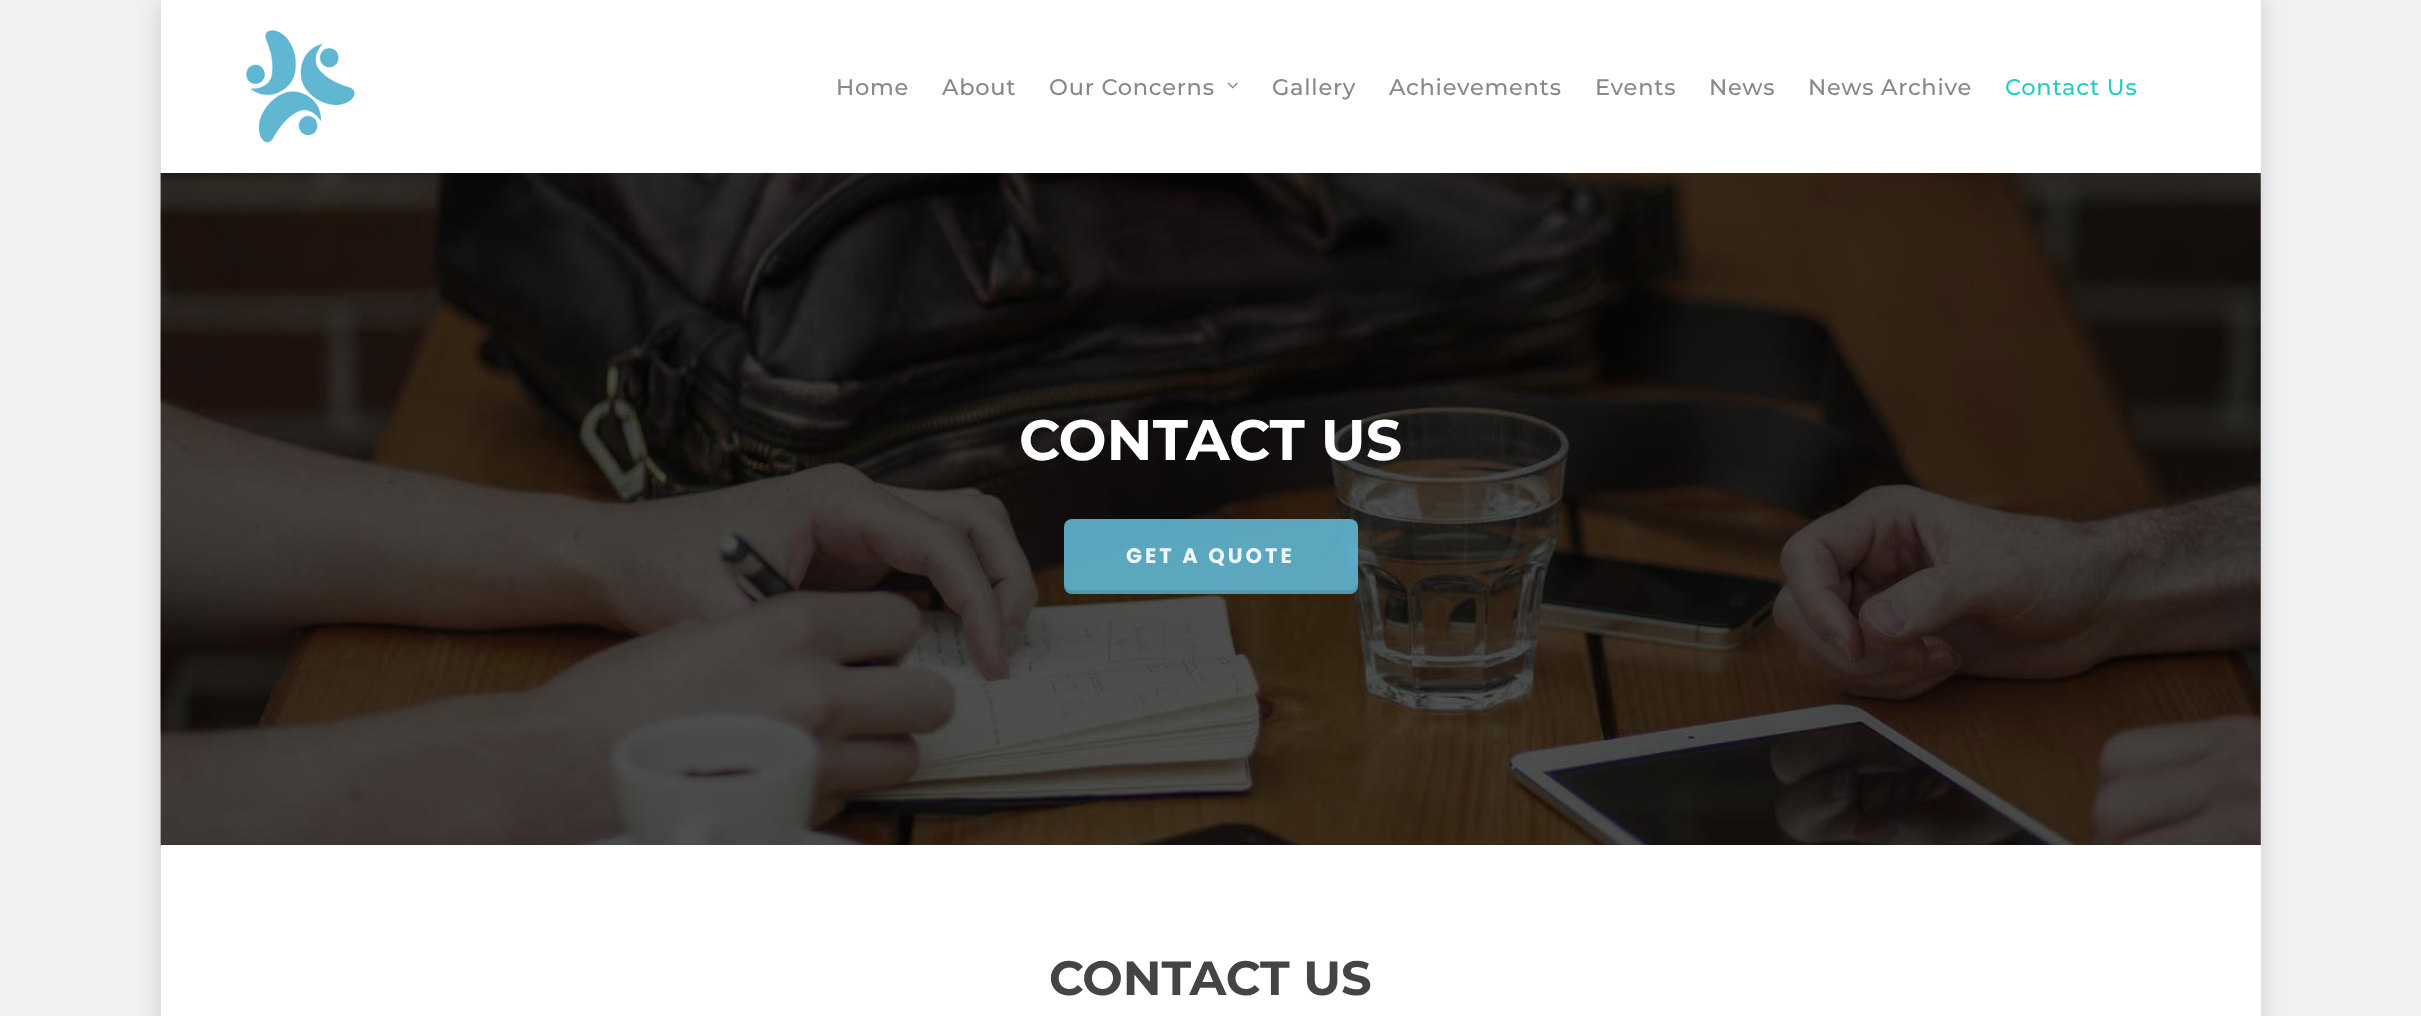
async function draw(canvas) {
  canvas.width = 2421
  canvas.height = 1016
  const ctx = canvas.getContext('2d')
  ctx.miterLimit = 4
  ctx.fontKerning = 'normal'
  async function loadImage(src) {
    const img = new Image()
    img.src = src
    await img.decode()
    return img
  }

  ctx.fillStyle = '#f1f1f1'
  ctx.fillRect(0, 0, 2421, 1016)
  ctx.fillStyle = '#00000026'
  ctx.filter = 'blur(11px)'
  ctx.beginPath()
  ctx.rect(161, 0, 2100, 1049)
  ctx.fill()
  ctx.filter = 'none'
  ctx.fillStyle = '#fff'
  ctx.fillRect(2260, 173, 1, 672)
  ctx.drawImage(await loadImage('image2.png'), 160, 172, 2101, 674)
  ctx.fillRect(161, 0, 2100, 173)
  ctx.drawImage(await loadImage('image0.png'), 246, 30, 109, 113)
  ctx.letterSpacing = '0.75px'
  ctx.font = '500 22.5px Montserrat'
  ctx.fillStyle = '#888'
  ctx.fillText('Home', 836, 95)
  ctx.fillText('About', 942, 95)
  ctx.fillText('Our Concerns', 1049, 95)
  ctx.drawImage(await loadImage('image1.png'), 1227, 82, 11, 7)
  ctx.fillText('Gallery', 1272, 95)
  ctx.fillText('Achievements', 1389, 95)
  ctx.fillText('Events', 1595, 95)
  ctx.fillText('News', 1709, 95)
  ctx.fillText('News Archive', 1808, 95)
  ctx.fillStyle = '#27ccc0'
  ctx.fillText('Contact Us', 2005, 95)
  ctx.fillStyle = '#0a0a0a80'
  ctx.fillRect(161, 173, 2100, 672)
  ctx.letterSpacing = '0px'
  ctx.font = 'bold 57px Montserrat'
  ctx.fillStyle = '#fff'
  ctx.fillText('CONTACT US', 1019, 460)
  ctx.fillStyle = '#61b6d1e6'
  ctx.beginPath()
  ctx.roundRect(1064, 519, 294, 75, 8)
  ctx.fill()
  ctx.fillStyle = '#00000017'
  ctx.beginPath()
  ctx.moveTo(1064, 582)
  ctx.lineTo(1064, 586)
  ctx.bezierCurveTo(1064, 590, 1068, 594, 1072, 594)
  ctx.lineTo(1350, 594)
  ctx.bezierCurveTo(1354, 594, 1358, 590, 1358, 586)
  ctx.lineTo(1358, 582)
  ctx.bezierCurveTo(1358, 586, 1354, 590, 1350, 590)
  ctx.lineTo(1071, 590)
  ctx.bezierCurveTo(1067, 590, 1064, 586, 1064, 582)
  ctx.closePath()
  ctx.fill()
  ctx.letterSpacing = '3px'
  ctx.font = 'bold 21px Poppins'
  ctx.fillStyle = '#eff6f8'
  ctx.fillText('GET A QUOTE', 1126, 563)
  ctx.fillStyle = '#fff'
  ctx.fillRect(161, 845, 2100, 171)
  ctx.letterSpacing = '0px'
  ctx.font = 'bold 48px Montserrat'
  ctx.fillStyle = '#444'
  ctx.fillText('CONTACT US', 1049, 995)
}

draw(document.querySelector('canvas'))
